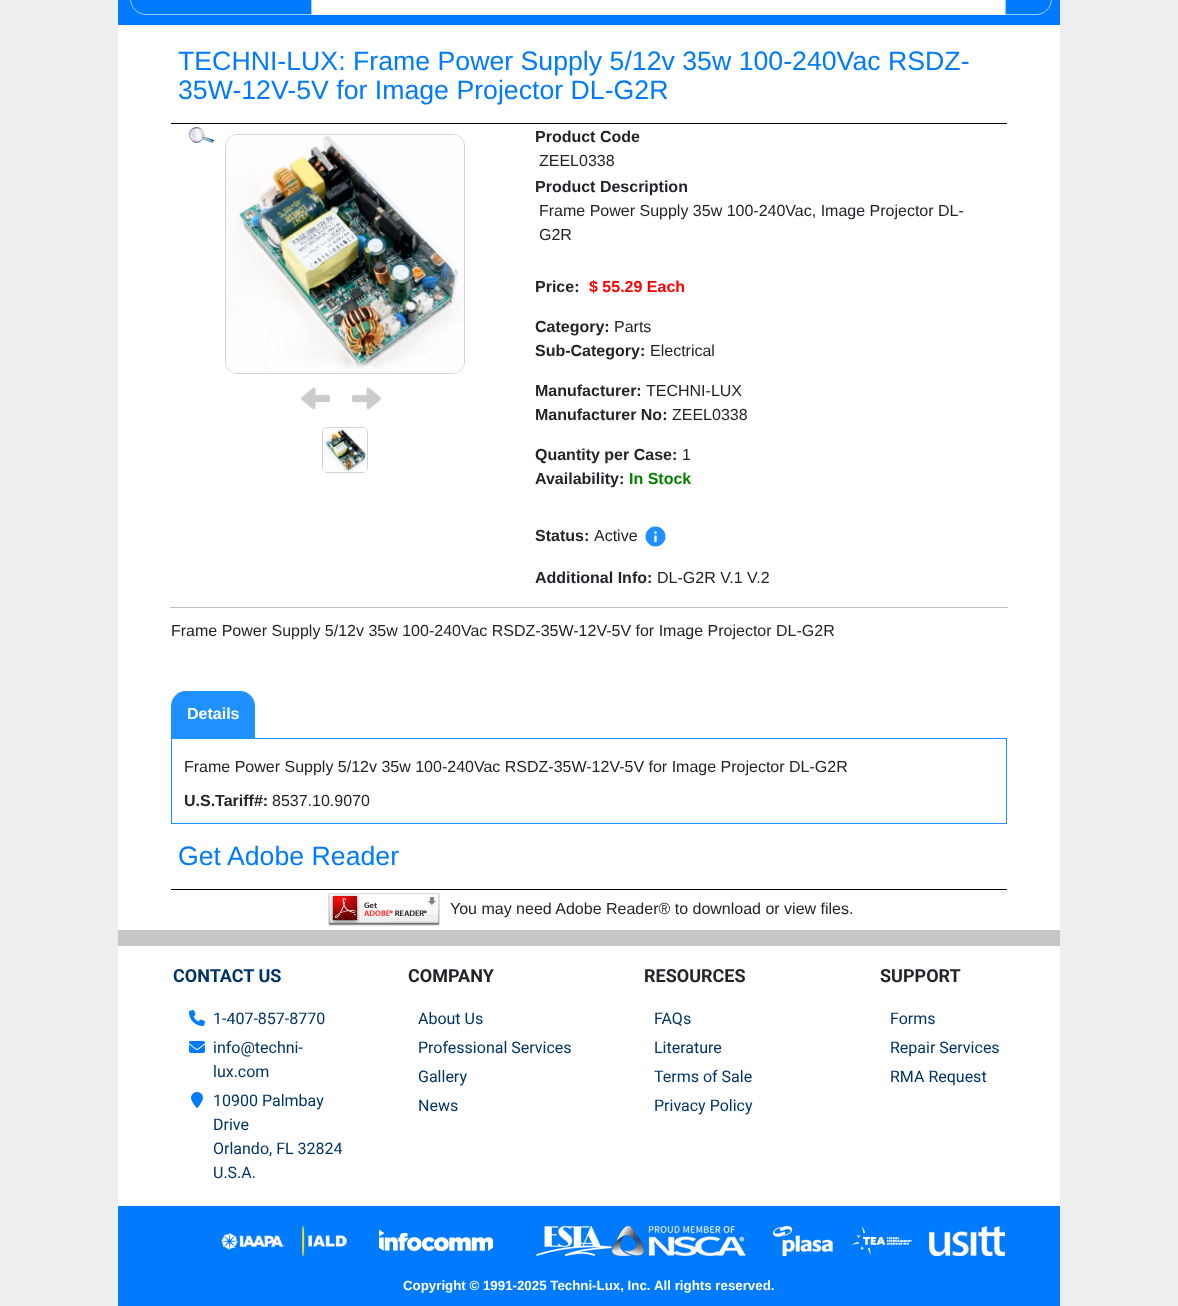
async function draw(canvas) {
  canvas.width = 1178
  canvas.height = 1306
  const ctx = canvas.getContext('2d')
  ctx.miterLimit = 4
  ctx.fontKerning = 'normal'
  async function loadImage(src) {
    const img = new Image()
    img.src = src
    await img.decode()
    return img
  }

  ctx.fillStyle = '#eee'
  ctx.fillRect(0, 0, 1178, 1306)
  ctx.fillStyle = '#007bff'
  ctx.fillRect(118, 0, 942, 25)
  ctx.fillStyle = '#fff'
  ctx.fillRect(311, 14, 695, 1)
  ctx.fillStyle = '#007bff'
  ctx.beginPath()
  ctx.moveTo(146, -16.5)
  ctx.lineTo(311.5, -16.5)
  ctx.lineTo(311.5, 14.5)
  ctx.lineTo(146, 14.5)
  ctx.bezierCurveTo(137.5, 14.5, 130.5, 7.5, 130.5, -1)
  ctx.bezierCurveTo(130.5, -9.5, 137.5, -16.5, 146, -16.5)
  ctx.closePath()
  ctx.fill()
  ctx.strokeStyle = '#9cf'
  ctx.stroke()
  ctx.fillStyle = '#fff'
  ctx.fillRect(312, 0, 693, 14)
  ctx.fillStyle = '#007bff'
  ctx.beginPath()
  ctx.moveTo(1005.5, -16.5)
  ctx.lineTo(1036, -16.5)
  ctx.bezierCurveTo(1044.5, -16.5, 1051.5, -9.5, 1051.5, -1)
  ctx.bezierCurveTo(1051.5, 7.5, 1044.5, 14.5, 1036, 14.5)
  ctx.lineTo(1005.5, 14.5)
  ctx.closePath()
  ctx.fill()
  ctx.stroke()
  ctx.fillStyle = '#fff'
  ctx.fillRect(118, 25, 942, 905)
  ctx.fillStyle = '#000'
  ctx.fillRect(171, 123, 836, 1)
  ctx.font = '26.7px Liberation Sans'
  ctx.fillStyle = '#007bff'
  ctx.fillText('TECHNI-LUX: Frame Power Supply 5/12v 35w 100-240Vac RSDZ-', 178, 70)
  ctx.fillText('35W-12V-5V for Image Projector DL-G2R', 178, 99)
  ctx.drawImage(await loadImage('image0.png'), 189, 127, 25, 16)
  ctx.beginPath()
  ctx.roundRect(225.5, 134.5, 239, 239, 11.5)
  ctx.strokeStyle = '#d3d3d3'
  ctx.stroke()
  ctx.drawImage(await loadImage('image1.png'), 226, 135, 238, 238)
  ctx.drawImage(await loadImage('image2.png'), 301, 387, 29, 23)
  ctx.drawImage(await loadImage('image3.png'), 352, 387, 29, 23)
  ctx.beginPath()
  ctx.roundRect(322.5, 427.5, 45, 45, 4.5)
  ctx.stroke()
  ctx.drawImage(await loadImage('image4.png'), 323, 428, 44, 44)
  ctx.font = 'bold 16px Liberation Sans'
  ctx.fillStyle = '#212529'
  ctx.fillText('Product Code', 535, 142)
  ctx.font = '16px Liberation Sans'
  ctx.fillText('ZEEL0338', 539, 166)
  ctx.font = 'bold 16px Liberation Sans'
  ctx.fillText('Product Description', 535, 192)
  ctx.font = '16px Liberation Sans'
  ctx.fillText('Frame Power Supply 35w 100-240Vac, Image Projector DL-', 539, 216)
  ctx.fillText('G2R', 539, 240)
  ctx.font = 'bold 16px Liberation Sans'
  ctx.fillText('Price:', 535, 292)
  ctx.fillStyle = '#f00'
  ctx.fillText('$ 55.29 Each', 589, 292)
  ctx.fillStyle = '#212529'
  ctx.fillText('Category:', 535, 332)
  ctx.font = '16px Liberation Sans'
  ctx.fillText('Parts', 614, 332)
  ctx.font = 'bold 16px Liberation Sans'
  ctx.fillText('Sub-Category:', 535, 356)
  ctx.font = '16px Liberation Sans'
  ctx.fillText('Electrical', 650, 356)
  ctx.font = 'bold 16px Liberation Sans'
  ctx.fillText('Manufacturer:', 535, 396)
  ctx.font = '16px Liberation Sans'
  ctx.fillText('TECHNI-LUX', 646, 396)
  ctx.font = 'bold 16px Liberation Sans'
  ctx.fillText('Manufacturer No:', 535, 420)
  ctx.font = '16px Liberation Sans'
  ctx.fillText('ZEEL0338', 672, 420)
  ctx.font = 'bold 16px Liberation Sans'
  ctx.fillText('Quantity per Case:', 535, 460)
  ctx.font = '16px Liberation Sans'
  ctx.fillText('1', 682, 460)
  ctx.font = 'bold 16px Liberation Sans'
  ctx.fillText('Availability:', 535, 484)
  ctx.fillStyle = '#008000'
  ctx.fillText('In Stock', 629, 484)
  ctx.fillStyle = '#212529'
  ctx.fillText('Status:', 535, 541)
  ctx.font = '16px Liberation Sans'
  ctx.fillText('Active', 594, 541)
  ctx.drawImage(await loadImage('image5.png'), 645, 526, 21, 21)
  ctx.font = 'bold 16px Liberation Sans'
  ctx.fillText('Additional Info:', 535, 583)
  ctx.font = '16px Liberation Sans'
  ctx.fillText('DL-G2R V.1 V.2', 657, 583)
  ctx.fillStyle = '#c0c0c0'
  ctx.fillRect(170, 607, 838, 1)
  ctx.fillStyle = '#212529'
  ctx.fillText('Frame Power Supply 5/12v 35w 100-240Vac RSDZ-35W-12V-5V for Image Projector DL-G2R', 171, 636)
  ctx.fillStyle = '#1e90ff'
  ctx.fillRect(171, 738, 836, 1)
  ctx.beginPath()
  ctx.roundRect(171, 691, 84, 47, [15, 15, 0, 0])
  ctx.fill()
  ctx.font = 'bold 16px Liberation Sans'
  ctx.fillStyle = '#fff'
  ctx.fillText('Details', 187, 719)
  ctx.fillStyle = '#1e90ff'
  ctx.fillRect(1006, 739, 1, 85)
  ctx.fillRect(171, 823, 836, 1)
  ctx.fillRect(171, 739, 1, 85)
  ctx.font = '16px Liberation Sans'
  ctx.fillStyle = '#212529'
  ctx.fillText('Frame Power Supply 5/12v 35w 100-240Vac RSDZ-35W-12V-5V for Image Projector DL-G2R', 184, 772)
  ctx.font = 'bold 16px Liberation Sans'
  ctx.fillText('U.S.Tariff#:', 184, 806)
  ctx.font = '16px Liberation Sans'
  ctx.fillText('8537.10.9070', 272, 806)
  ctx.fillStyle = '#000'
  ctx.fillRect(171, 889, 836, 1)
  ctx.font = '26.7px Liberation Sans'
  ctx.fillStyle = '#007bff'
  ctx.fillText('Get Adobe Reader', 178, 865)
  ctx.drawImage(await loadImage('image6.png'), 328, 893, 112, 33)
  ctx.font = '16px Liberation Sans'
  ctx.fillStyle = '#212529'
  ctx.fillText('You may need Adobe Reader® to download or view files.', 450, 914)
  ctx.fillStyle = '#fff'
  ctx.fillRect(118, 946, 942, 260)
  ctx.fillStyle = '#c6c6c6'
  ctx.fillRect(118, 930, 942, 16)
  ctx.font = 'bold 18px Roboto'
  ctx.fillStyle = '#036'
  ctx.fillText('CONTACT US', 173, 982)
  ctx.drawImage(await loadImage('image7.png'), 189, 1010, 16, 16)
  ctx.font = '16px Roboto'
  ctx.fillText('1-407-857-8770', 213, 1024)
  ctx.drawImage(await loadImage('image8.png'), 189, 1041, 16, 12)
  ctx.fillText('info@techni-', 213, 1053)
  ctx.fillText('lux.com', 213, 1077)
  ctx.drawImage(await loadImage('image9.png'), 191, 1092, 12, 16)
  ctx.fillText('10900 Palmbay', 213, 1106)
  ctx.fillText('Drive', 213, 1130)
  ctx.fillText('Orlando, FL 32824', 213, 1154)
  ctx.fillText('U.S.A.', 213, 1178)
  ctx.font = 'bold 18px Roboto'
  ctx.fillStyle = '#212529'
  ctx.fillText('COMPANY', 408, 982)
  ctx.font = '16px Roboto'
  ctx.fillStyle = '#036'
  ctx.fillText('About Us', 418, 1024)
  ctx.fillText('Professional Services', 418, 1053)
  ctx.fillText('Gallery', 418, 1082)
  ctx.fillText('News', 418, 1111)
  ctx.font = 'bold 18px Roboto'
  ctx.fillStyle = '#212529'
  ctx.fillText('RESOURCES', 644, 982)
  ctx.font = '16px Roboto'
  ctx.fillStyle = '#036'
  ctx.fillText('FAQs', 654, 1024)
  ctx.fillText('Literature', 654, 1053)
  ctx.fillText('Terms of Sale', 654, 1082)
  ctx.fillText('Privacy Policy', 654, 1111)
  ctx.font = 'bold 18px Roboto'
  ctx.fillStyle = '#212529'
  ctx.fillText('SUPPORT', 880, 982)
  ctx.font = '16px Roboto'
  ctx.fillStyle = '#036'
  ctx.fillText('Forms', 890, 1024)
  ctx.fillText('Repair Services', 890, 1053)
  ctx.fillText('RMA Request', 890, 1082)
  ctx.fillStyle = '#007bff'
  ctx.fillRect(118, 1206, 942, 100)
  ctx.drawImage(await loadImage('image10.png'), 221, 1233, 64, 17)
  ctx.drawImage(await loadImage('image11.png'), 302, 1226, 45, 30)
  ctx.drawImage(await loadImage('image12.png'), 379, 1230, 114, 21)
  ctx.drawImage(await loadImage('image13.png'), 536, 1226, 76, 30)
  ctx.drawImage(await loadImage('image14.png'), 612, 1226, 134, 30)
  ctx.drawImage(await loadImage('image15.png'), 773, 1226, 60, 30)
  ctx.drawImage(await loadImage('image16.png'), 852, 1227, 60, 28)
  ctx.drawImage(await loadImage('image17.png'), 929, 1226, 76, 30)
  ctx.font = 'bold 13.3px Liberation Sans'
  ctx.fillStyle = '#fff'
  ctx.fillText('Copyright © 1991-2025 Techni-Lux, Inc.', 403, 1290)
  ctx.fillText('All rights reserved.', 654, 1290)
}

draw(document.querySelector('canvas'))
